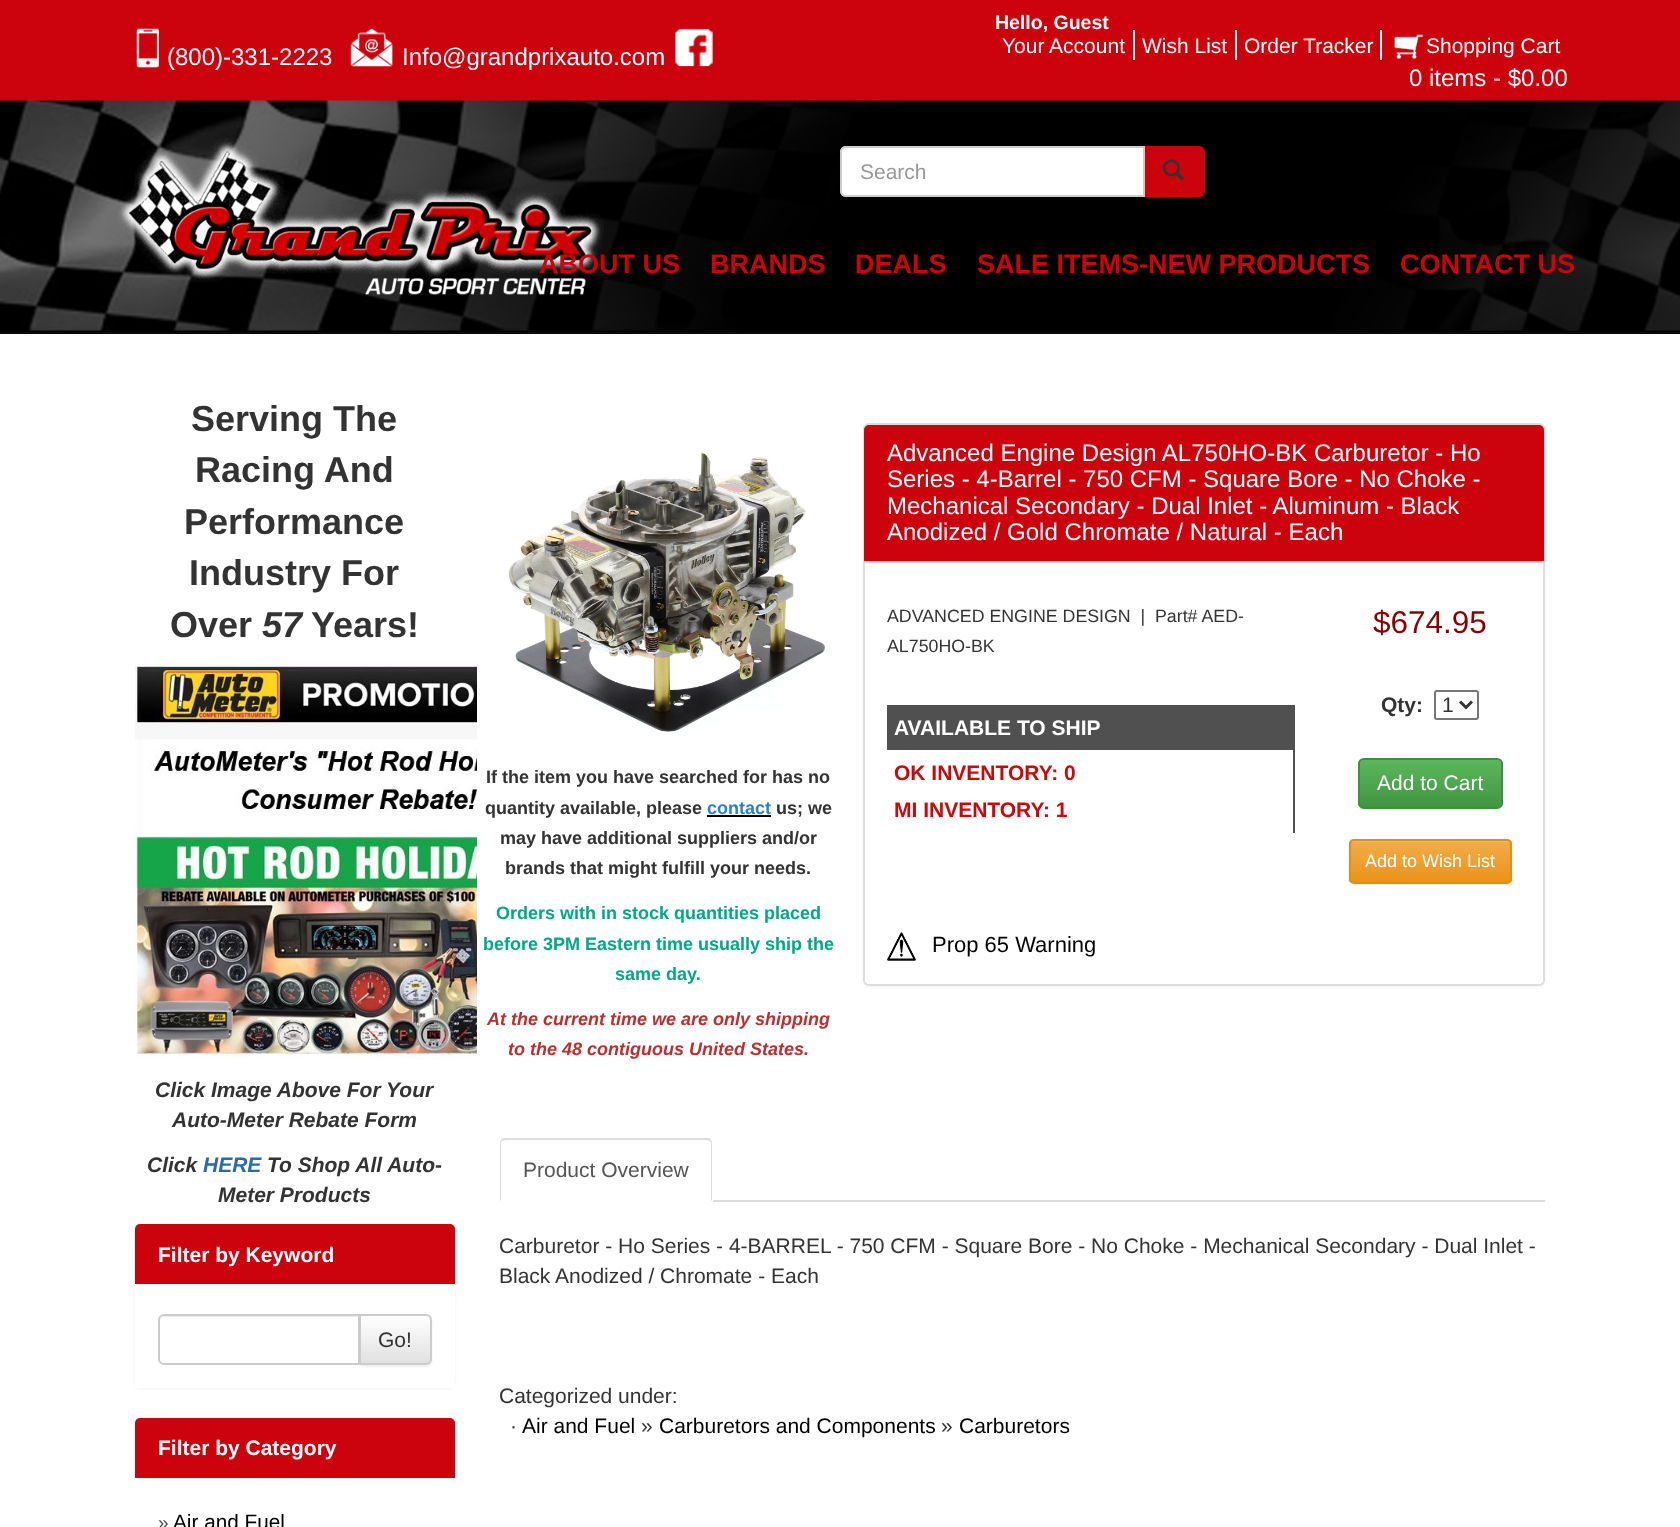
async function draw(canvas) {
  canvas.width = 1680
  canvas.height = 1527
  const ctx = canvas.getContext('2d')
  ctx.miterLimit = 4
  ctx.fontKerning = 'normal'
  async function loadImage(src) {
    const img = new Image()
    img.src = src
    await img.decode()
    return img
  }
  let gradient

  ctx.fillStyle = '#fff'
  ctx.fillRect(0, 0, 1680, 1527)
  ctx.fillStyle = '#080808'
  ctx.fillRect(0, 332, 1680, 2)
  ctx.fillStyle = '#cc020c'
  ctx.fillRect(0, 0, 1680, 101)
  ctx.drawImage(await loadImage('image0.png'), 136, 28, 23, 40)
  ctx.font = '24px Liberation Sans'
  ctx.fillStyle = '#fff'
  ctx.fillText('(800)-331-2223', 167, 65)
  ctx.drawImage(await loadImage('image1.png'), 350, 28, 43, 39)
  ctx.fillText('Info@grandprixauto.com', 402, 65)
  ctx.drawImage(await loadImage('image2.png'), 675, 28, 38, 39)
  ctx.font = 'bold 19.5px Liberation Sans'
  ctx.fillText('Hello, Guest', 995, 29)
  ctx.fillRect(1133, 30, 2, 30)
  ctx.font = '21px Liberation Sans'
  ctx.fillText('Your Account', 1002, 53)
  ctx.fillRect(1235, 30, 2, 30)
  ctx.fillText('Wish List', 1142, 53)
  ctx.fillRect(1380, 30, 2, 30)
  ctx.fillText('Order Tracker', 1244, 53)
  ctx.drawImage(await loadImage('image3.png'), 1394, 34, 29, 25)
  ctx.fillText('Shopping Cart', 1426, 53)
  ctx.font = '24px Liberation Sans'
  ctx.fillText('0 items - $0.00', 1409, 86)
  ctx.fillStyle = '#000'
  ctx.fillRect(0, 331, 1680, 1)
  ctx.drawImage(await loadImage('image4.png'), 0, 100, 1680, 231)
  ctx.fillStyle = '#cc020c'
  ctx.beginPath()
  ctx.roundRect(1143, 146, 62, 51, [0, 6, 6, 0])
  ctx.fill()
  ctx.fillStyle = '#fff'
  ctx.beginPath()
  ctx.roundRect(840, 146, 305, 51, [6, 0, 0, 6])
  ctx.fill()
  ctx.fillStyle = '#ececec'
  ctx.beginPath()
  ctx.moveTo(846, 148)
  ctx.lineTo(1143, 148)
  ctx.lineTo(1143, 147)
  ctx.lineTo(847, 147)
  ctx.bezierCurveTo(844, 147, 842, 150, 842, 153)
  ctx.bezierCurveTo(842, 151, 844, 148, 846, 148)
  ctx.closePath()
  ctx.fill()
  ctx.beginPath()
  ctx.roundRect(841, 147, 303, 49, [5, 0, 0, 5])
  ctx.strokeStyle = '#ccc'
  ctx.lineWidth = 2
  ctx.stroke()
  ctx.font = '21px Liberation Sans'
  ctx.fillStyle = '#999'
  ctx.fillText('Search', 860, 179)
  ctx.drawImage(await loadImage('image5.png'), 1162, 159, 22, 22)
  ctx.drawImage(await loadImage('image6.png'), 116, 138, 488, 157)
  ctx.font = 'bold 27px Liberation Sans'
  ctx.fillStyle = '#cc020c'
  ctx.fillText('ABOUT US', 539, 273)
  ctx.fillText('BRANDS', 710, 273)
  ctx.fillText('DEALS', 855, 273)
  ctx.fillText('SALE ITEMS-NEW PRODUCTS', 977, 273)
  ctx.fillText('CONTACT US', 1400, 273)
  ctx.font = 'bold 36px Liberation Sans'
  ctx.fillStyle = '#333'
  ctx.fillText('Serving The', 191, 431)
  ctx.fillText('Racing And', 195, 482)
  ctx.fillText('Performance', 184, 534)
  ctx.fillText('Industry For', 189, 585)
  ctx.fillText('Over', 170, 637)
  ctx.font = 'italic bold 36px Liberation Sans'
  ctx.fillText('57', 262, 637)
  ctx.font = 'bold 36px Liberation Sans'
  ctx.fillText('Years!', 311, 637)
  ctx.drawImage(await loadImage('image7.png'), 135, 666, 342, 393)
  ctx.font = 'italic bold 21px Liberation Sans'
  ctx.fillText('Click Image Above For Your', 155, 1097)
  ctx.fillText('Auto-Meter Rebate Form', 172, 1127)
  ctx.fillText('Click', 147, 1172)
  ctx.fillStyle = '#2969b0'
  ctx.fillText('HERE', 203, 1172)
  ctx.fillStyle = '#333'
  ctx.fillText('To Shop All Auto-', 267, 1172)
  ctx.fillText('Meter Products', 218, 1202)
  ctx.fillStyle = '#0000000d'
  ctx.filter = 'blur(1.5px)'
  ctx.beginPath()
  ctx.roundRect(135, 1226, 320, 163, 6)
  ctx.fill()
  ctx.filter = 'none'
  ctx.fillStyle = '#cc020c'
  ctx.beginPath()
  ctx.roundRect(135, 1224, 320, 60, [5, 5, 0, 0])
  ctx.fill()
  ctx.font = 'bold 21px Liberation Sans'
  ctx.fillStyle = '#fff'
  ctx.fillText('Filter by Keyword', 158, 1262)
  ctx.fillRect(135, 1284, 320, 104)
  ctx.fillStyle = '#00000012'
  ctx.filter = 'blur(1px)'
  ctx.beginPath()
  ctx.roundRect(359, 1316, 73, 51, 6)
  ctx.fill()
  ctx.filter = 'none'
  ctx.save()
  ctx.beginPath()
  ctx.roundRect(359, 1314, 73, 51, [0, 6, 6, 0])
  ctx.clip()
  gradient = ctx.createLinearGradient(395, 1316, 395, 1364)
  gradient.addColorStop(0, '#fff')
  gradient.addColorStop(1, '#e0e0e0')
  ctx.fillStyle = gradient
  ctx.fillRect(361, 1316, 71, 48)
  ctx.restore()
  ctx.fillStyle = '#ffffff26'
  ctx.beginPath()
  ctx.moveTo(360, 1317)
  ctx.lineTo(426, 1317)
  ctx.bezierCurveTo(428, 1317, 430, 1319, 430, 1322)
  ctx.lineTo(430, 1360)
  ctx.lineTo(429, 1363)
  ctx.bezierCurveTo(430, 1362, 431, 1360, 431, 1359)
  ctx.lineTo(431, 1321)
  ctx.bezierCurveTo(431, 1318, 429, 1316, 426, 1316)
  ctx.lineTo(360, 1316)
  ctx.closePath()
  ctx.fill()
  ctx.beginPath()
  ctx.roundRect(360, 1315, 71, 49, [0, 5, 5, 0])
  ctx.stroke()
  ctx.fillStyle = '#fff'
  ctx.beginPath()
  ctx.roundRect(158, 1314, 202, 51, [6, 0, 0, 6])
  ctx.fill()
  ctx.fillStyle = '#ececec'
  ctx.beginPath()
  ctx.moveTo(164, 1317)
  ctx.lineTo(358, 1317)
  ctx.lineTo(358, 1364)
  ctx.lineTo(359, 1364)
  ctx.lineTo(359, 1316)
  ctx.lineTo(164, 1316)
  ctx.bezierCurveTo(161, 1316, 159, 1319, 159, 1322)
  ctx.bezierCurveTo(159, 1319, 161, 1317, 164, 1317)
  ctx.closePath()
  ctx.fill()
  ctx.beginPath()
  ctx.roundRect(159, 1315, 200, 49, [5, 0, 0, 5])
  ctx.stroke()
  ctx.font = '21px Liberation Sans'
  ctx.fillStyle = '#333'
  ctx.fillText('Go!', 378, 1347)
  ctx.fillStyle = '#cc020c'
  ctx.beginPath()
  ctx.roundRect(135, 1418, 320, 60, [5, 5, 0, 0])
  ctx.fill()
  ctx.font = 'bold 21px Liberation Sans'
  ctx.fillStyle = '#fff'
  ctx.fillText('Filter by Category', 158, 1455)
  ctx.font = '19px Liberation Sans'
  ctx.fillStyle = '#4d4d4d'
  ctx.fillText('»', 158, 1529)
  ctx.font = '20.75px Liberation Sans'
  ctx.fillStyle = '#000'
  ctx.fillText('Air and Fuel', 173, 1529)
  ctx.drawImage(await loadImage('image8.png'), 508, 452, 317, 280)
  ctx.font = 'bold 18px Liberation Sans'
  ctx.fillStyle = '#333'
  ctx.fillText('If the item you have searched for has no', 486, 783)
  ctx.fillText('quantity available, please', 485, 814)
  ctx.fillStyle = '#2c82c9'
  ctx.fillText('contact', 707, 814)
  ctx.fillStyle = '#000'
  ctx.fillRect(707, 815, 64, 2)
  ctx.fillStyle = '#333'
  ctx.fillText('us; we', 776, 814)
  ctx.fillText('may have additional suppliers and/or', 500, 844)
  ctx.fillText('brands that might fulfill your needs.', 505, 874)
  ctx.fillStyle = '#00a885'
  ctx.fillText('Orders with in stock quantities placed', 496, 919)
  ctx.fillText('before 3PM Eastern time usually ship the', 483, 950)
  ctx.fillText('same day.', 615, 980)
  ctx.font = 'italic bold 18px Liberation Sans'
  ctx.fillStyle = '#b8312f'
  ctx.fillText('At the current time we are only shipping', 487, 1025)
  ctx.fillText('to the 48 contiguous United States.', 508, 1055)
  ctx.fillStyle = '#0000000d'
  ctx.filter = 'blur(1.5px)'
  ctx.beginPath()
  ctx.roundRect(863, 425, 682, 562, 6)
  ctx.fill()
  ctx.filter = 'none'
  ctx.fillStyle = '#fff'
  ctx.beginPath()
  ctx.roundRect(864, 424, 680, 561, 5)
  ctx.fill()
  ctx.strokeStyle = '#ddd'
  ctx.stroke()
  ctx.fillStyle = '#cc020c'
  ctx.beginPath()
  ctx.roundRect(864, 425, 680, 138, [5, 5, 0, 0])
  ctx.fill()
  ctx.fillStyle = '#ddd'
  ctx.fillRect(864, 561, 680, 2)
  ctx.font = '24px Liberation Sans'
  ctx.fillStyle = '#fff'
  ctx.fillText('Advanced Engine Design AL750HO-BK Carburetor - Ho', 887, 461)
  ctx.fillText('Series - 4-Barrel - 750 CFM - Square Bore - No Choke -', 887, 487)
  ctx.fillText('Mechanical Secondary - Dual Inlet - Aluminum - Black', 887, 514)
  ctx.fillText('Anodized / Gold Chromate / Natural - Each', 887, 540)
  ctx.font = '17.8px Liberation Sans'
  ctx.fillStyle = '#333'
  ctx.fillText('ADVANCED ENGINE DESIGN  |', 887, 622)
  ctx.fillText('Part# AED-', 1155, 622)
  ctx.fillText('AL750HO-BK', 887, 652)
  ctx.fillStyle = '#505050'
  ctx.fillRect(887, 705, 408, 45)
  ctx.font = 'bold 21px Liberation Sans'
  ctx.fillStyle = '#fff'
  ctx.fillText('AVAILABLE TO SHIP', 894, 735)
  ctx.fillStyle = '#505050'
  ctx.fillRect(1293, 750, 2, 83)
  ctx.fillStyle = '#cb0909'
  ctx.fillText('OK INVENTORY: 0', 894, 780)
  ctx.fillText('MI INVENTORY: 1', 894, 817)
  ctx.drawImage(await loadImage('image9.png'), 887, 932, 29, 29)
  ctx.font = '22px Liberation Sans'
  ctx.fillStyle = '#000'
  ctx.fillText('Prop 65 Warning', 932, 952)
  ctx.font = '31.5px Liberation Sans'
  ctx.fillStyle = '#8b0000'
  ctx.fillText('$674.95', 1373, 633)
  ctx.font = 'bold 21px Liberation Sans'
  ctx.fillStyle = '#333'
  ctx.fillText('Qty:', 1381, 712)
  ctx.beginPath()
  ctx.roundRect(1435, 691, 43, 28, 2)
  ctx.strokeStyle = '#767676'
  ctx.stroke()
  ctx.beginPath()
  ctx.moveTo(1460, 701.5)
  ctx.lineTo(1466, 707.5)
  ctx.lineTo(1472, 701.5)
  ctx.strokeStyle = '#333'
  ctx.lineWidth = 3
  ctx.stroke()
  ctx.font = '21px Liberation Sans'
  ctx.fillText('1', 1442, 712)
  ctx.fillStyle = '#00000012'
  ctx.filter = 'blur(1px)'
  ctx.beginPath()
  ctx.roundRect(1358, 759, 145, 51, 6)
  ctx.fill()
  ctx.filter = 'none'
  ctx.save()
  ctx.beginPath()
  ctx.roundRect(1358, 758, 145, 51, 6)
  ctx.clip()
  gradient = ctx.createLinearGradient(1430, 759, 1430, 807)
  gradient.addColorStop(0, '#5cb85c')
  gradient.addColorStop(1, '#419641')
  ctx.fillStyle = gradient
  ctx.fillRect(1358, 759, 145, 48)
  ctx.restore()
  ctx.fillStyle = '#74c374'
  ctx.beginPath()
  ctx.moveTo(1364, 760)
  ctx.lineTo(1497, 760)
  ctx.bezierCurveTo(1499, 760, 1502, 763, 1502, 765)
  ctx.lineTo(1502, 764)
  ctx.bezierCurveTo(1502, 761, 1500, 759, 1497, 759)
  ctx.lineTo(1364, 759)
  ctx.bezierCurveTo(1361, 759, 1359, 761, 1359, 764)
  ctx.lineTo(1359, 765)
  ctx.bezierCurveTo(1359, 763, 1361, 760, 1364, 760)
  ctx.closePath()
  ctx.fill()
  ctx.beginPath()
  ctx.roundRect(1359, 759, 143, 49, 5)
  ctx.strokeStyle = '#3e8f3e'
  ctx.lineWidth = 2
  ctx.stroke()
  ctx.fillStyle = '#fff'
  ctx.fillText('Add to Cart', 1377, 790)
  ctx.fillStyle = '#00000012'
  ctx.filter = 'blur(1px)'
  ctx.beginPath()
  ctx.roundRect(1349, 840, 163, 45, 5)
  ctx.fill()
  ctx.filter = 'none'
  ctx.save()
  ctx.beginPath()
  ctx.roundRect(1349, 839, 163, 45, 5)
  ctx.clip()
  gradient = ctx.createLinearGradient(1430, 840, 1430, 882)
  gradient.addColorStop(0, '#f0ad4e')
  gradient.addColorStop(1, '#eb9316')
  ctx.fillStyle = gradient
  ctx.fillRect(1349, 840, 163, 42)
  ctx.restore()
  ctx.fillStyle = '#ffffff26'
  ctx.beginPath()
  ctx.moveTo(1353, 842)
  ctx.lineTo(1508, 842)
  ctx.bezierCurveTo(1509, 842, 1510, 843, 1510, 844)
  ctx.lineTo(1510, 881)
  ctx.bezierCurveTo(1511, 881, 1511, 880, 1511, 879)
  ctx.lineTo(1511, 843)
  ctx.bezierCurveTo(1511, 841, 1510, 840, 1508, 840)
  ctx.lineTo(1353, 840)
  ctx.bezierCurveTo(1351, 840, 1350, 841, 1350, 843)
  ctx.lineTo(1350, 844)
  ctx.bezierCurveTo(1350, 843, 1351, 842, 1353, 842)
  ctx.closePath()
  ctx.fill()
  ctx.beginPath()
  ctx.roundRect(1350, 840, 161, 43, 4)
  ctx.strokeStyle = '#e38d13'
  ctx.stroke()
  ctx.font = '18px Liberation Sans'
  ctx.fillStyle = '#fff'
  ctx.fillText('Add to Wish List', 1365, 867)
  ctx.fillStyle = '#ddd'
  ctx.fillRect(713, 1200, 832, 2)
  ctx.beginPath()
  ctx.moveTo(506, 1140)
  ctx.bezierCurveTo(504, 1140, 503, 1141, 502, 1141)
  ctx.lineTo(501, 1140)
  ctx.lineTo(503, 1138)
  ctx.lineTo(709, 1138)
  ctx.lineTo(711, 1140)
  ctx.lineTo(710, 1141)
  ctx.bezierCurveTo(709, 1141, 708, 1140, 706, 1140)
  ctx.closePath()
  ctx.fill()
  ctx.beginPath()
  ctx.moveTo(711, 1140)
  ctx.bezierCurveTo(712, 1141, 712, 1143, 712, 1144)
  ctx.lineTo(712, 1201)
  ctx.lineTo(711, 1200)
  ctx.lineTo(711, 1143)
  ctx.lineTo(710, 1141)
  ctx.closePath()
  ctx.fill()
  ctx.beginPath()
  ctx.moveTo(500, 1201)
  ctx.lineTo(500, 1144)
  ctx.bezierCurveTo(500, 1143, 500, 1141, 501, 1140)
  ctx.lineTo(502, 1141)
  ctx.lineTo(501, 1143)
  ctx.lineTo(501, 1200)
  ctx.closePath()
  ctx.fill()
  ctx.font = '21px Liberation Sans'
  ctx.fillStyle = '#555'
  ctx.fillText('Product Overview', 523, 1177)
  ctx.fillStyle = '#333'
  ctx.fillText('Carburetor - Ho Series - 4-BARREL - 750 CFM - Square Bore - No Choke - Mechanical Secondary - Dual Inlet -', 499, 1253)
  ctx.fillText('Black Anodized / Chromate - Each', 499, 1283)
  ctx.fillText('Categorized under:', 499, 1403)
  ctx.fillText('·', 510, 1433)
  ctx.fillStyle = '#000'
  ctx.fillText('Air and Fuel', 522, 1433)
  ctx.fillStyle = '#333'
  ctx.fillText('»', 641, 1433)
  ctx.fillStyle = '#000'
  ctx.fillText('Carburetors and Components', 659, 1433)
  ctx.fillStyle = '#333'
  ctx.fillText('»', 941, 1433)
  ctx.fillStyle = '#000'
  ctx.fillText('Carburetors', 959, 1433)
}

draw(document.querySelector('canvas'))
